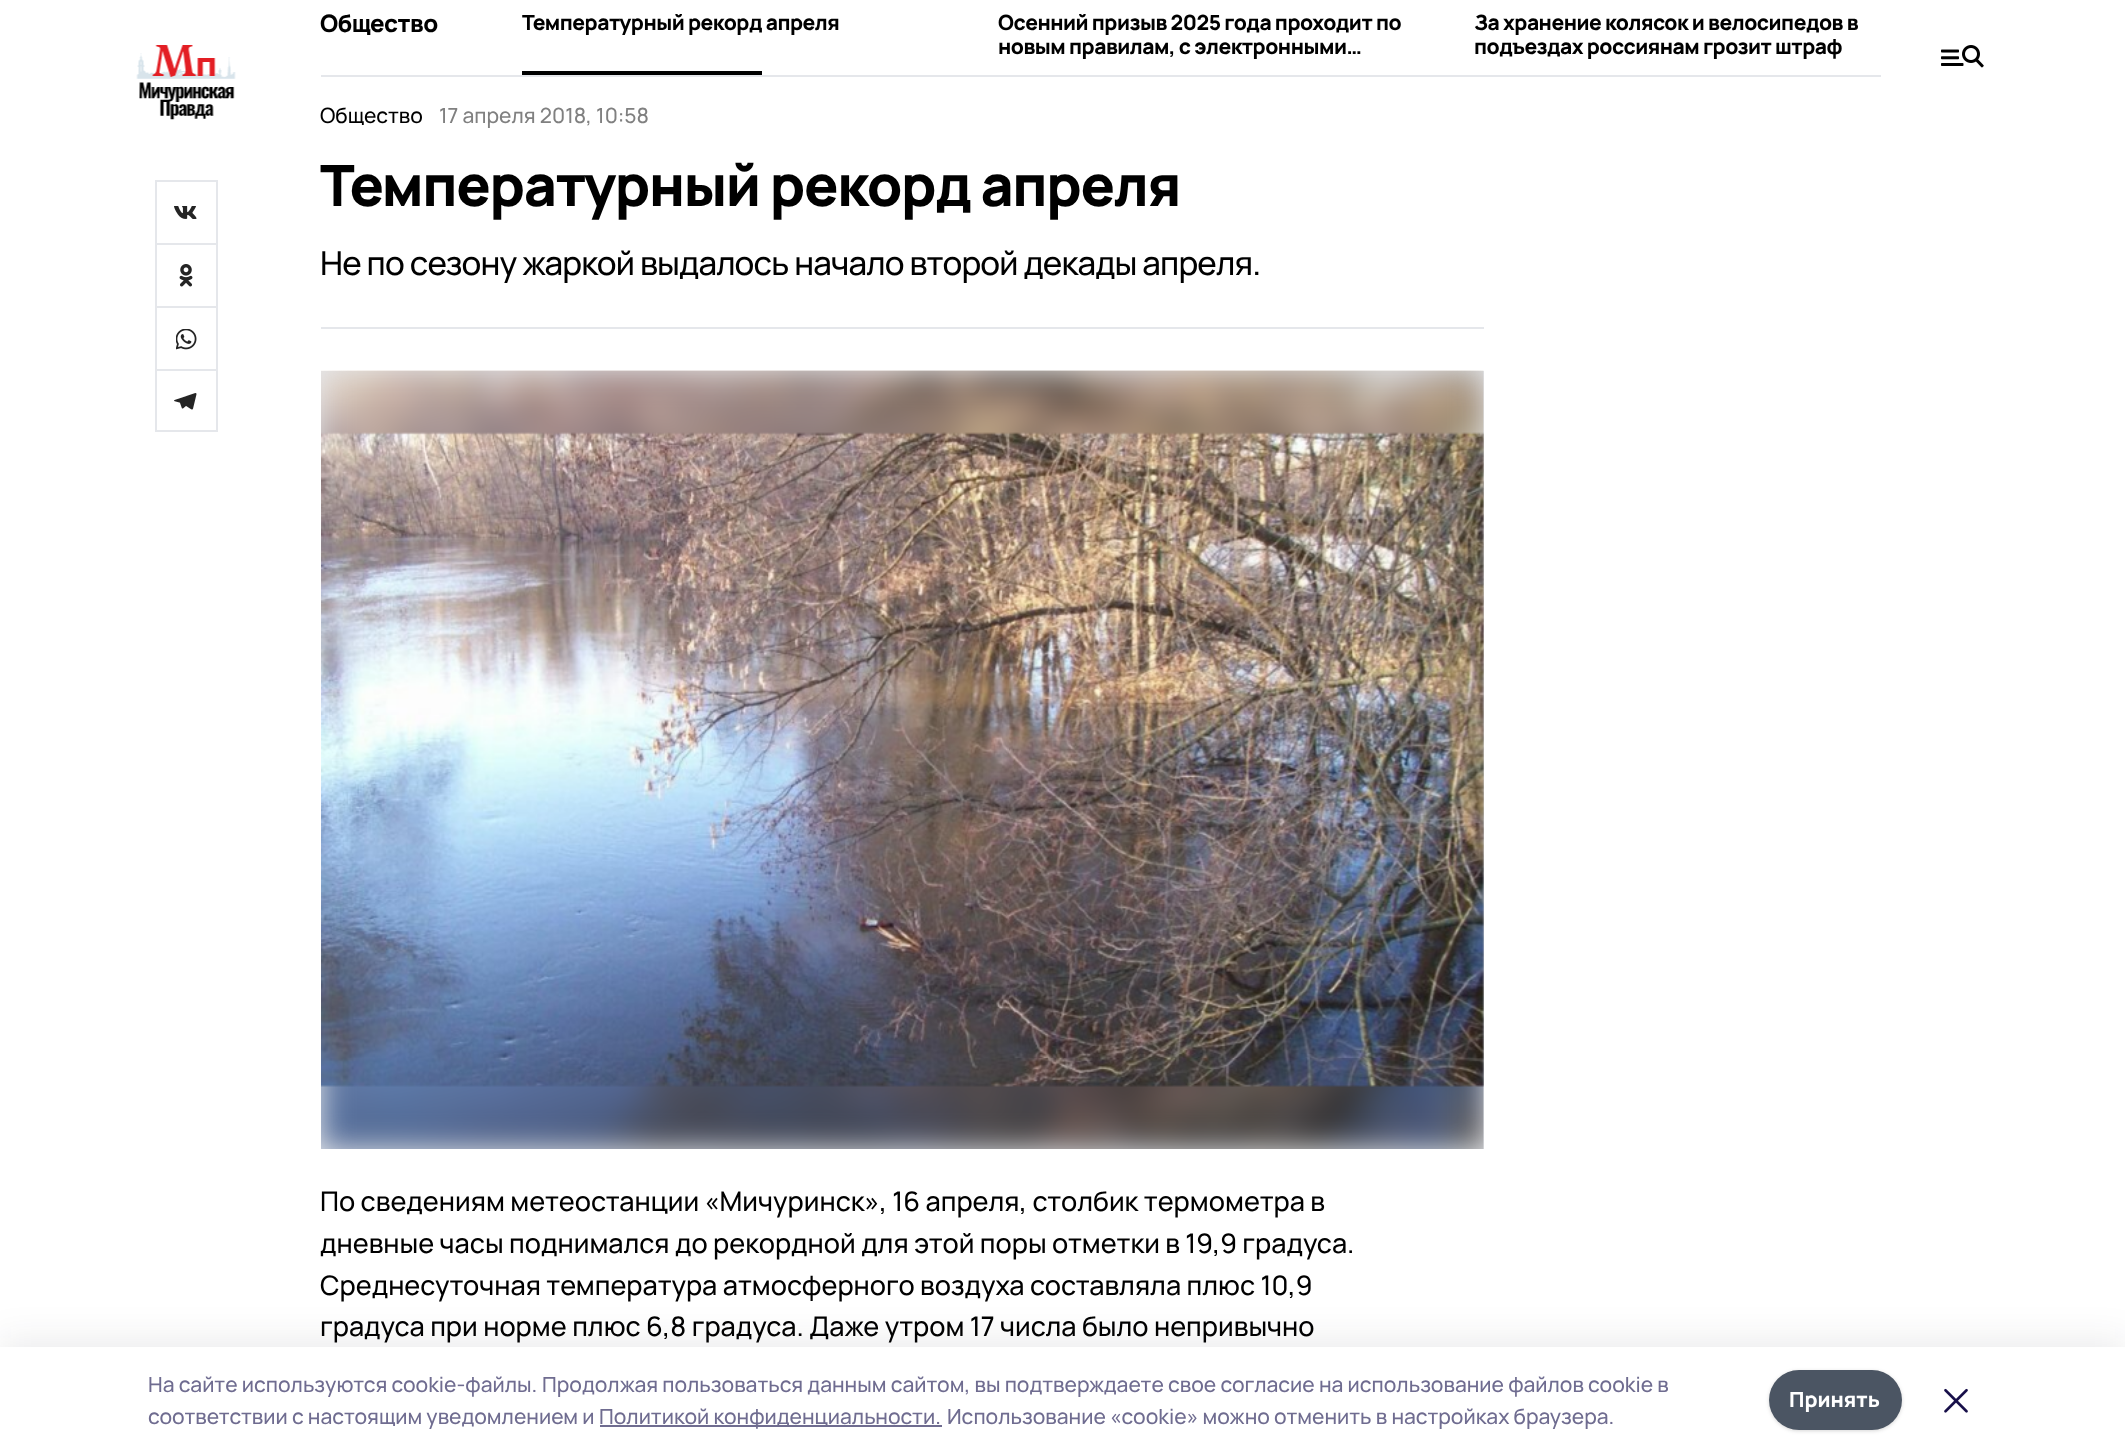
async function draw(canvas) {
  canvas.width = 2125
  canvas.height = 1451
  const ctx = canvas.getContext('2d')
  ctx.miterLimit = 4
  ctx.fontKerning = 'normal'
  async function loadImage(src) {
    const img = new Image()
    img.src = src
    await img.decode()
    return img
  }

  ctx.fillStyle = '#fff'
  ctx.fillRect(0, 0, 2125, 1451)
  ctx.drawImage(await loadImage('image0.png'), 136, 45, 100, 75)
  ctx.drawImage(await loadImage('image1.png'), 174, 206, 23, 13)
  ctx.fillStyle = '#e5e7eb'
  ctx.fillRect(155, 180, 63, 2)
  ctx.fillRect(216, 180, 2, 63)
  ctx.fillRect(155, 180, 2, 63)
  ctx.drawImage(await loadImage('image2.png'), 179, 264, 14, 23)
  ctx.fillRect(155, 243, 63, 2)
  ctx.fillRect(216, 243, 2, 63)
  ctx.fillRect(155, 243, 2, 63)
  ctx.drawImage(await loadImage('image3.png'), 176, 329, 21, 21)
  ctx.fillRect(155, 306, 63, 2)
  ctx.fillRect(216, 306, 2, 63)
  ctx.fillRect(155, 306, 2, 63)
  ctx.drawImage(await loadImage('image4.png'), 174, 393, 23, 17)
  ctx.strokeStyle = '#e5e7eb'
  ctx.lineWidth = 2
  ctx.strokeRect(156, 370, 61, 61)
  ctx.fillRect(321, 75, 1560, 2)
  ctx.letterSpacing = '-0.5px'
  ctx.font = '800 24px Manrope'
  ctx.fillStyle = '#000'
  ctx.fillText('Общество', 320, 32)
  ctx.save()
  ctx.beginPath()
  ctx.rect(522, 11, 450, 24)
  ctx.clip()
  ctx.font = '800 21px Manrope'
  ctx.fillText('Температурный рекорд апреля', 522, 30)
  ctx.restore()
  ctx.fillRect(522, 71, 240, 4)
  ctx.font = '800 21px Manrope'
  ctx.fillText('Осенний призыв 2025 года проходит по', 998, 30)
  ctx.save()
  ctx.beginPath()
  ctx.rect(998, 11, 450, 48)
  ctx.clip()
  ctx.fillText('новым правилам, с электронными…', 998, 54)
  ctx.restore()
  ctx.fillText('За хранение колясок и велосипедов в', 1474, 30)
  ctx.save()
  ctx.beginPath()
  ctx.rect(1475, 11, 406, 48)
  ctx.clip()
  ctx.fillText('подъездах россиянам грозит штраф', 1474, 54)
  ctx.restore()
  ctx.letterSpacing = '0px'
  ctx.font = '500 21px Manrope'
  ctx.fillText('Общество', 320, 123)
  ctx.fillStyle = '#808080'
  ctx.fillText('17 апреля 2018, 10:58', 439, 123)
  ctx.letterSpacing = '-1.4px'
  ctx.font = '800 57px Manrope'
  ctx.fillStyle = '#000'
  ctx.fillText('Температурный рекорд апреля', 320, 206)
  ctx.fillStyle = '#e5e7eb'
  ctx.fillRect(321, 327, 1163, 2)
  ctx.letterSpacing = '-0.83px'
  ctx.font = '500 33px Manrope'
  ctx.fillStyle = '#000'
  ctx.fillText('Не по сезону жаркой выдалось начало второй декады апреля.', 320, 275)
  ctx.fillStyle = '#e5e7eb'
  ctx.fillRect(321, 371, 1163, 778)
  ctx.drawImage(await loadImage('image5.png'), 321, 370, 1163, 779)
  ctx.drawImage(await loadImage('image6.png'), 321, 432, 1163, 655)
  ctx.letterSpacing = '0px'
  ctx.font = '500 27px Manrope'
  ctx.fillStyle = '#000'
  ctx.fillText('По сведениям метеостанции «Мичуринск», 16 апреля, столбик термометра в', 320, 1211)
  ctx.fillText('дневные часы поднимался до рекордной для этой поры отметки в 19,9 градуса.', 320, 1253)
  ctx.fillText('Среднесуточная температура атмосферного воздуха составляла плюс 10,9', 320, 1295)
  ctx.fillText('градуса при норме плюс 6,8 градуса. Даже утром 17 числа было непривычно', 320, 1336)
  ctx.drawImage(await loadImage('image7.png'), 1941, 45, 43, 23)
  ctx.fillStyle = '#14142b14'
  ctx.filter = 'blur(17px)'
  ctx.beginPath()
  ctx.rect(0, 1338, 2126, 105)
  ctx.fill()
  ctx.filter = 'none'
  ctx.fillStyle = '#fff'
  ctx.fillRect(0, 1347, 2125, 104)
  ctx.font = '500 21px Manrope'
  ctx.fillStyle = '#6f6c90'
  ctx.fillText('На сайте используются cookie-файлы.', 148, 1392)
  ctx.fillText('Продолжая пользоваться данным сайтом, вы подтверждаете свое согласие на использование файлов cookie в', 542, 1392)
  ctx.fillText('соответствии с настоящим уведомлением и', 148, 1424)
  ctx.fillRect(600, 1425, 342, 2)
  ctx.fillText('Политикой конфиденциальности.', 599, 1424)
  ctx.fillText('Использование «cookie» можно отменить в настройках браузера.', 947, 1424)
  ctx.fillStyle = '#0000000f'
  ctx.filter = 'blur(1.5px)'
  ctx.beginPath()
  ctx.roundRect(1769, 1371, 133, 60, 30)
  ctx.fill()
  ctx.filter = 'none'
  ctx.fillStyle = '#0000001a'
  ctx.filter = 'blur(2px)'
  ctx.beginPath()
  ctx.roundRect(1769, 1371, 133, 60, 30)
  ctx.fill()
  ctx.filter = 'none'
  ctx.fillStyle = '#4b5563'
  ctx.beginPath()
  ctx.roundRect(1769, 1370, 133, 60, 30)
  ctx.fill()
  ctx.font = '800 21px Manrope'
  ctx.fillStyle = '#fff'
  ctx.fillText('Принять', 1789, 1407)
  ctx.drawImage(await loadImage('image8.png'), 1944, 1388, 24, 25)
}

draw(document.querySelector('canvas'))
